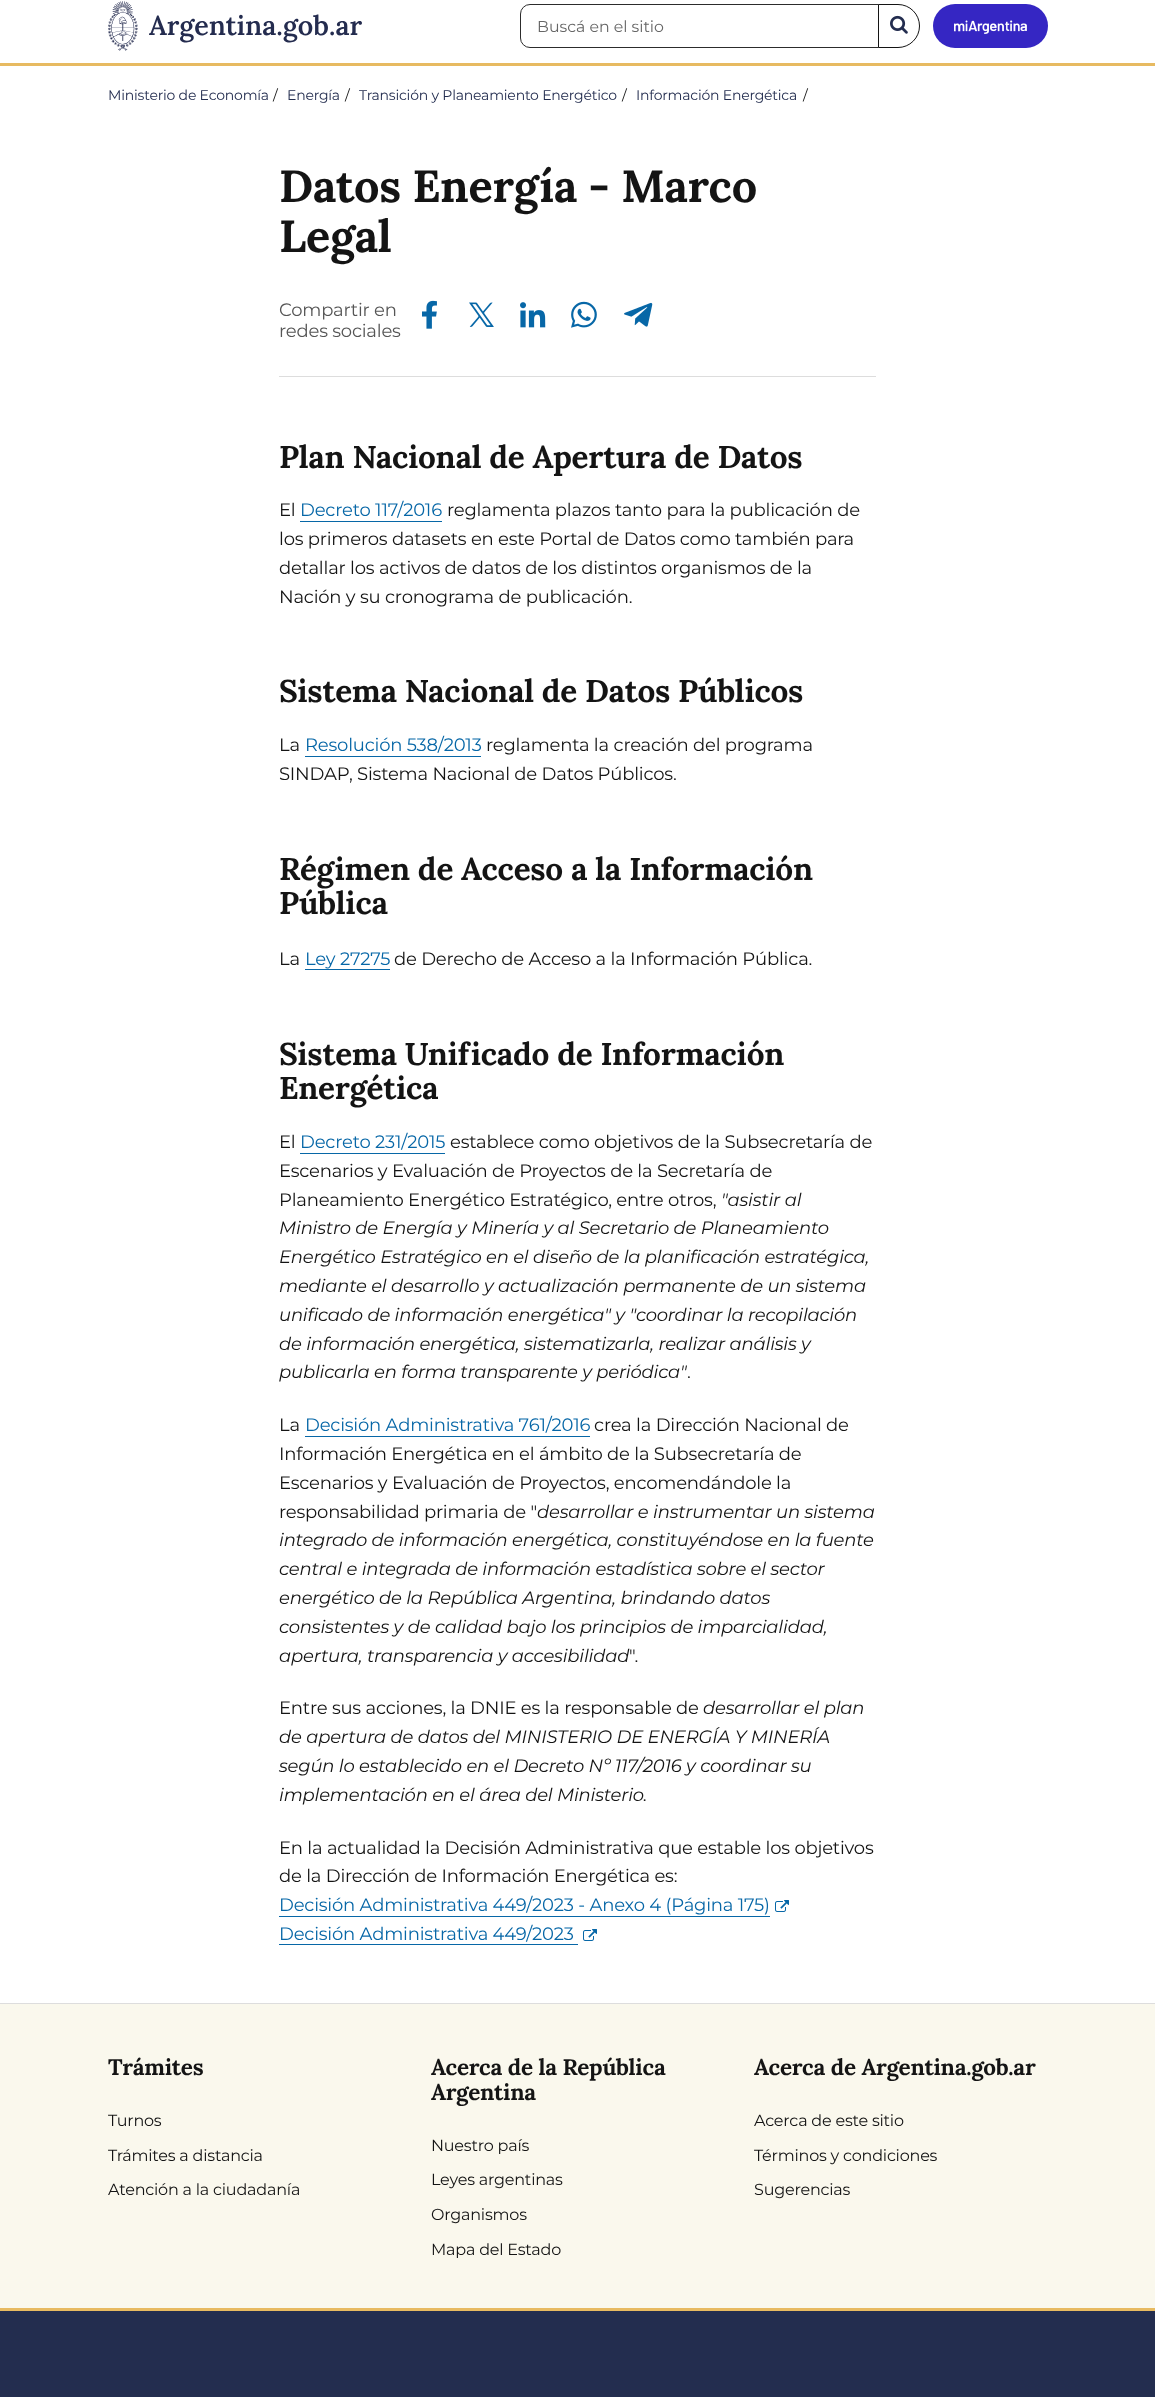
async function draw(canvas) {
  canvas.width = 1155
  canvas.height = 2397
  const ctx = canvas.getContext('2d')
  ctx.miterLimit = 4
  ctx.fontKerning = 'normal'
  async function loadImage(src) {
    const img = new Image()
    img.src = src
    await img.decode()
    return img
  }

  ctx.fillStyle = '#fff'
  ctx.fillRect(0, 0, 1155, 2397)
  ctx.fillStyle = '#e7ba61'
  ctx.fillRect(0, 63, 1155, 3)
  ctx.drawImage(await loadImage('image0.png'), 108, 1, 254, 50)
  ctx.beginPath()
  ctx.roundRect(520.5, 4.5, 358, 43, [9.5, 0, 0, 9.5])
  ctx.strokeStyle = '#2c2c2c'
  ctx.stroke()
  ctx.font = '15.75px Montserrat'
  ctx.fillStyle = '#666'
  ctx.fillText('Buscá en el sitio', 537, 32)
  ctx.fillStyle = '#fff'
  ctx.beginPath()
  ctx.roundRect(878.5, 4.5, 41, 43, [0, 21.5, 21.5, 0])
  ctx.fill()
  ctx.strokeStyle = '#141414'
  ctx.stroke()
  ctx.drawImage(await loadImage('image1.png'), 890, 15, 18, 19)
  ctx.fillStyle = '#3526c3'
  ctx.beginPath()
  ctx.roundRect(933, 4, 115, 44, 22)
  ctx.fill()
  ctx.drawImage(await loadImage('image2.png'), 954, 20, 73, 14)
  ctx.letterSpacing = '-0.2px'
  ctx.font = '14px Montserrat'
  ctx.fillStyle = '#232d4f'
  ctx.fillText('Ministerio de Economía', 108, 100)
  ctx.fillStyle = '#141414'
  ctx.fillText('/', 273, 100)
  ctx.fillStyle = '#232d4f'
  ctx.fillText('Energía', 287, 100)
  ctx.fillStyle = '#141414'
  ctx.fillText('/', 345, 100)
  ctx.fillStyle = '#232d4f'
  ctx.fillText('Transición y Planeamiento Energético', 359, 100)
  ctx.fillStyle = '#141414'
  ctx.fillText('/', 622, 100)
  ctx.fillStyle = '#232d4f'
  ctx.fillText('Información Energética', 636, 100)
  ctx.fillStyle = '#141414'
  ctx.fillText('/', 803, 100)
  ctx.letterSpacing = '-0.25px'
  ctx.font = 'bold 45px Lora'
  ctx.fillText('Datos Energía - Marco', 279, 202)
  ctx.fillText('Legal', 279, 252)
  ctx.letterSpacing = '-0.2px'
  ctx.font = '18px Montserrat'
  ctx.fillStyle = '#555'
  ctx.fillText('Compartir en', 279, 316)
  ctx.fillText('redes sociales', 279, 337)
  ctx.drawImage(await loadImage('image3.png'), 422, 300, 15, 29)
  ctx.drawImage(await loadImage('image4.png'), 469, 302, 25, 25)
  ctx.drawImage(await loadImage('image5.png'), 520, 302, 26, 26)
  ctx.drawImage(await loadImage('image6.png'), 571, 301, 26, 27)
  ctx.drawImage(await loadImage('image7.png'), 624, 302, 29, 25)
  ctx.fillStyle = '#ddd'
  ctx.fillRect(279, 376, 597, 1)
  ctx.letterSpacing = '-0.25px'
  ctx.font = 'bold 31.5px Lora'
  ctx.fillStyle = '#141414'
  ctx.fillText('Plan Nacional de Apertura de Datos', 279, 468)
  ctx.letterSpacing = '-0.2px'
  ctx.font = '18px Montserrat'
  ctx.fillText('El', 279, 516)
  ctx.fillStyle = '#0767a7'
  ctx.fillText('Decreto 117/2016', 300, 516)
  ctx.fillRect(300, 521, 142, 1)
  ctx.fillStyle = '#141414'
  ctx.fillText('reglamenta plazos tanto para la publicación de', 447, 516)
  ctx.fillText('los primeros datasets en este Portal de Datos como también para', 279, 545)
  ctx.fillText('detallar los activos de datos de los distintos organismos de la', 279, 574)
  ctx.fillText('Nación y su cronograma de publicación.', 279, 603)
  ctx.letterSpacing = '-0.25px'
  ctx.font = 'bold 31.5px Lora'
  ctx.fillText('Sistema Nacional de Datos Públicos', 279, 702)
  ctx.letterSpacing = '-0.2px'
  ctx.font = '18px Montserrat'
  ctx.fillText('La', 279, 751)
  ctx.fillStyle = '#0767a7'
  ctx.fillText('Resolución 538/2013', 305, 751)
  ctx.fillRect(305, 756, 176, 1)
  ctx.fillStyle = '#141414'
  ctx.fillText('reglamenta la creación del programa', 486, 751)
  ctx.fillText('SINDAP, Sistema Nacional de Datos Públicos.', 279, 780)
  ctx.letterSpacing = '-0.25px'
  ctx.font = 'bold 31.5px Lora'
  ctx.fillText('Régimen de Acceso a la Información', 279, 880)
  ctx.fillText('Pública', 279, 914)
  ctx.letterSpacing = '-0.2px'
  ctx.font = '18px Montserrat'
  ctx.fillText('La', 279, 965)
  ctx.fillStyle = '#0767a7'
  ctx.fillText('Ley 27275', 305, 965)
  ctx.fillRect(305, 969, 85, 1)
  ctx.fillStyle = '#141414'
  ctx.fillText('de Derecho de Acceso a la Información Pública.', 394, 965)
  ctx.letterSpacing = '-0.25px'
  ctx.font = 'bold 31.5px Lora'
  ctx.fillText('Sistema Unificado de Información', 279, 1065)
  ctx.fillText('Energética', 279, 1099)
  ctx.letterSpacing = '-0.2px'
  ctx.font = '18px Montserrat'
  ctx.fillText('El', 279, 1148)
  ctx.fillStyle = '#0767a7'
  ctx.fillText('Decreto 231/2015', 300, 1148)
  ctx.fillRect(300, 1153, 145, 1)
  ctx.fillStyle = '#141414'
  ctx.fillText('establece como objetivos de la Subsecretaría de', 450, 1148)
  ctx.fillText('Escenarios y Evaluación de Proyectos de la Secretaría de', 279, 1177)
  ctx.fillText('Planeamiento Energético Estratégico, entre otros,', 279, 1206)
  ctx.font = 'italic 18px Montserrat'
  ctx.fillText('"asistir al', 721, 1206)
  ctx.fillText('Ministro de Energía y Minería y al Secretario de Planeamiento', 279, 1234)
  ctx.fillText('Energético Estratégico en el diseño de la planificación estratégica,', 279, 1263)
  ctx.fillText('mediante el desarrollo y actualización permanente de un sistema', 279, 1292)
  ctx.fillText('unificado de información energética" y "coordinar la recopilación', 279, 1321)
  ctx.fillText('de información energética, sistematizarla, realizar análisis y', 279, 1350)
  ctx.fillText('publicarla en forma transparente y periódica"', 279, 1378)
  ctx.font = '18px Montserrat'
  ctx.fillText('.', 687, 1378)
  ctx.fillText('La', 279, 1431)
  ctx.fillStyle = '#0767a7'
  ctx.fillText('Decisión Administrativa 761/2016', 305, 1431)
  ctx.fillRect(305, 1436, 285, 1)
  ctx.fillStyle = '#141414'
  ctx.fillText('crea la Dirección Nacional de', 594, 1431)
  ctx.fillText('Información Energética en el ámbito de la Subsecretaría de', 279, 1460)
  ctx.fillText('Escenarios y Evaluación de Proyectos, encomendándole la', 279, 1489)
  ctx.fillText('responsabilidad primaria de "', 279, 1518)
  ctx.font = 'italic 18px Montserrat'
  ctx.fillText('desarrollar e instrumentar un sistema', 537, 1518)
  ctx.fillText('integrado de información energética, constituyéndose en la fuente', 279, 1546)
  ctx.fillText('central e integrada de información estadística sobre el sector', 279, 1575)
  ctx.fillText('energético de la República Argentina, brindando datos', 279, 1604)
  ctx.fillText('consistentes y de calidad bajo los principios de imparcialidad,', 279, 1633)
  ctx.fillText('apertura, transparencia y accesibilidad', 279, 1662)
  ctx.font = '18px Montserrat'
  ctx.fillText('".', 629, 1662)
  ctx.fillText('Entre sus acciones, la DNIE es la responsable de', 279, 1714)
  ctx.font = 'italic 18px Montserrat'
  ctx.fillText('desarrollar el plan', 703, 1714)
  ctx.fillText('de apertura de datos del MINISTERIO DE ENERGÍA Y MINERÍA', 279, 1743)
  ctx.fillText('según lo establecido en el Decreto Nº 117/2016 y coordinar su', 279, 1772)
  ctx.fillText('implementación en el área del Ministerio.', 279, 1801)
  ctx.font = '18px Montserrat'
  ctx.fillText('En la actualidad la Decisión Administrativa que estable los objetivos', 279, 1854)
  ctx.fillText('de la Dirección de Información Energética es:', 279, 1882)
  ctx.fillStyle = '#0767a7'
  ctx.fillText('Decisión Administrativa 449/2023 - Anexo 4 (Página 175)', 279, 1911)
  ctx.fillRect(279, 1916, 491, 1)
  ctx.drawImage(await loadImage('image8.png'), 775, 1900, 14, 12)
  ctx.fillText('Decisión Administrativa 449/2023', 279, 1940)
  ctx.fillRect(279, 1944, 299, 1)
  ctx.drawImage(await loadImage('image8.png'), 583, 1929, 14, 12)
  ctx.fillStyle = '#faf8ed'
  ctx.fillRect(0, 2004, 1155, 304)
  ctx.fillStyle = '#ddd'
  ctx.fillRect(0, 2003, 1155, 1)
  ctx.letterSpacing = '-0.25px'
  ctx.font = 'bold 22.5px Lora'
  ctx.fillStyle = '#141414'
  ctx.fillText('Trámites', 108, 2075)
  ctx.letterSpacing = '-0.2px'
  ctx.font = '16px Montserrat'
  ctx.fillText('Turnos', 108, 2126)
  ctx.fillText('Trámites a distancia', 108, 2161)
  ctx.fillText('Atención a la ciudadanía', 108, 2195)
  ctx.letterSpacing = '-0.25px'
  ctx.font = 'bold 22.5px Lora'
  ctx.fillText('Acerca de la República', 431, 2075)
  ctx.fillText('Argentina', 431, 2100)
  ctx.letterSpacing = '-0.2px'
  ctx.font = '16px Montserrat'
  ctx.fillText('Nuestro país', 431, 2151)
  ctx.fillText('Leyes argentinas', 431, 2185)
  ctx.fillText('Organismos', 431, 2220)
  ctx.fillText('Mapa del Estado', 431, 2255)
  ctx.letterSpacing = '-0.25px'
  ctx.font = 'bold 22.5px Lora'
  ctx.fillText('Acerca de Argentina.gob.ar', 754, 2075)
  ctx.letterSpacing = '-0.2px'
  ctx.font = '16px Montserrat'
  ctx.fillText('Acerca de este sitio', 754, 2126)
  ctx.fillText('Términos y condiciones', 754, 2161)
  ctx.fillText('Sugerencias', 754, 2195)
  ctx.fillStyle = '#e7ba61'
  ctx.fillRect(0, 2308, 1155, 3)
  ctx.fillStyle = '#232d4f'
  ctx.fillRect(0, 2311, 1155, 86)
}

draw(document.querySelector('canvas'))
